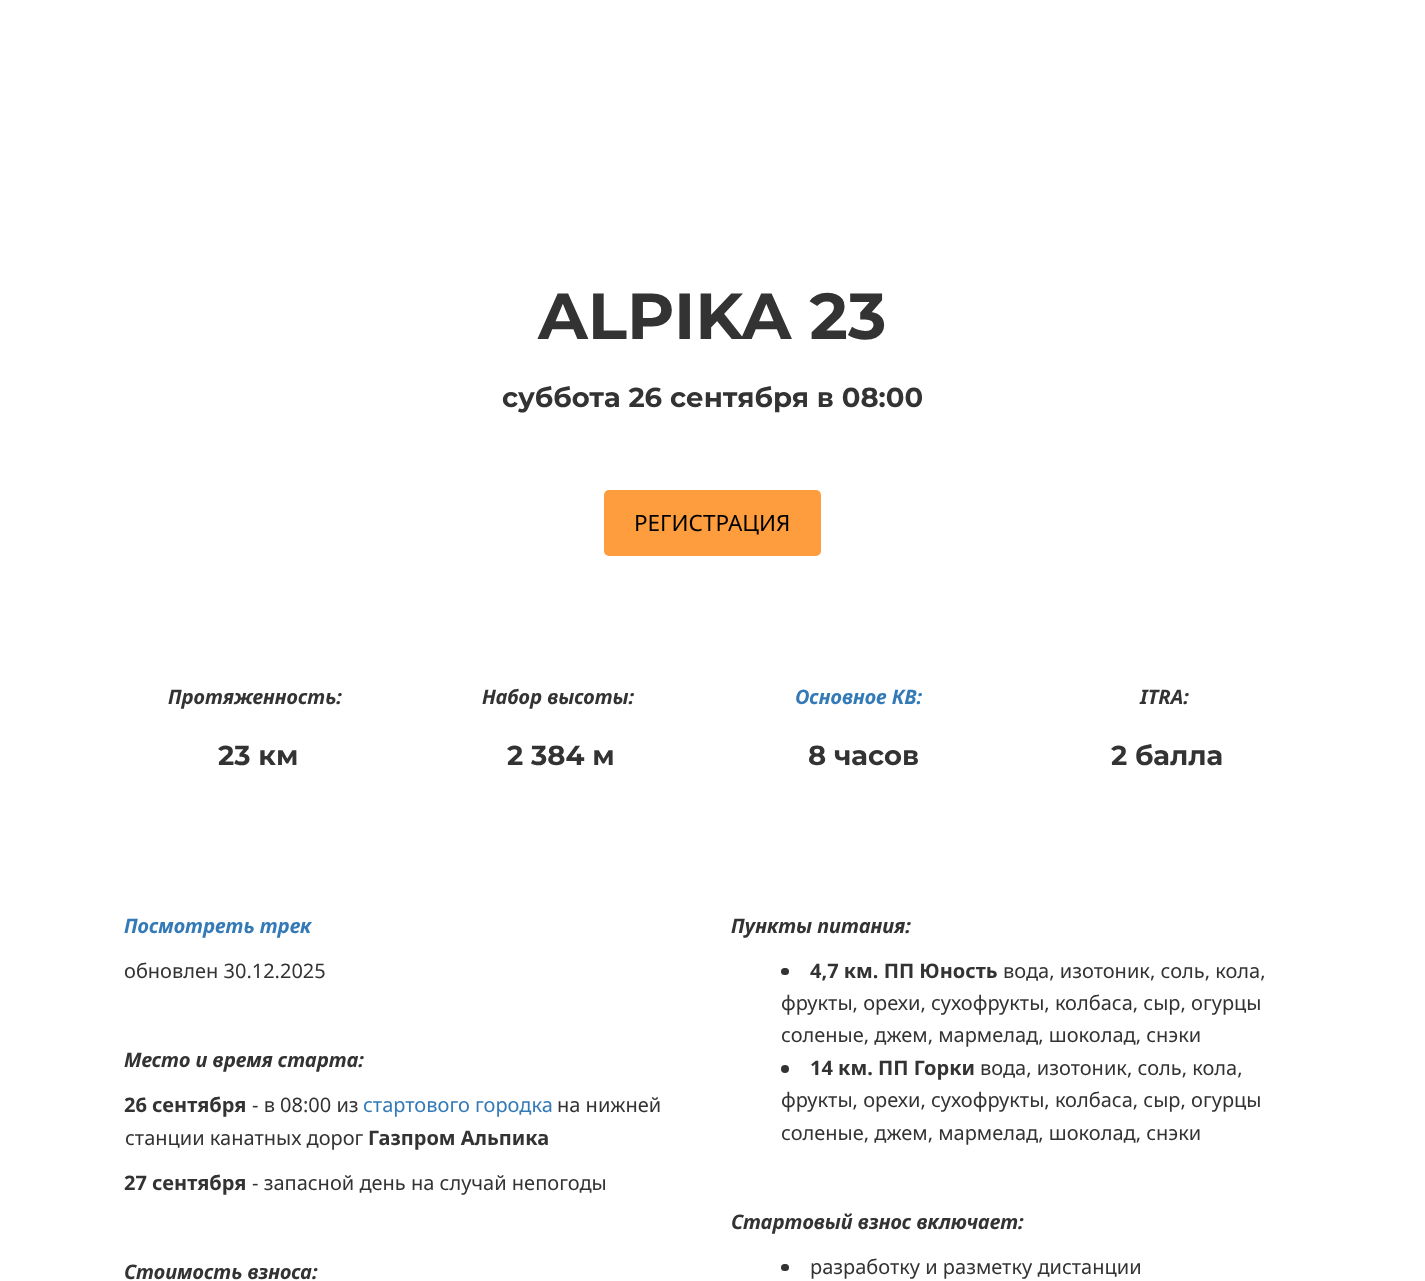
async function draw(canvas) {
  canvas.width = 1425
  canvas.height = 1281
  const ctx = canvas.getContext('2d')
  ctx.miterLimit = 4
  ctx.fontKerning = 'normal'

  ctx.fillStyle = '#fff'
  ctx.fillRect(0, 0, 1425, 1281)
  ctx.font = 'bold 65px Montserrat'
  ctx.fillStyle = '#333'
  ctx.fillText('ALPIKA 23', 538, 339)
  ctx.font = 'bold 27.5px Montserrat'
  ctx.fillText('суббота 26 сентября в 08:00', 502, 407)
  ctx.fillStyle = '#fd9d3e'
  ctx.beginPath()
  ctx.roundRect(604, 490, 217, 66, 5)
  ctx.fill()
  ctx.font = '22.5px Noto Sans'
  ctx.fillStyle = '#000'
  ctx.fillText('РЕГИСТРАЦИЯ', 634, 531)
  ctx.font = 'italic bold 20px Noto Sans'
  ctx.fillStyle = '#333'
  ctx.fillText('Протяженность:', 168, 704)
  ctx.font = 'bold 27.5px Montserrat'
  ctx.fillText('23 км', 218, 765)
  ctx.font = 'italic bold 20px Noto Sans'
  ctx.fillText('Набор высоты:', 482, 704)
  ctx.font = 'bold 27.5px Montserrat'
  ctx.fillText('2 384 м', 507, 765)
  ctx.font = 'italic bold 20px Noto Sans'
  ctx.fillStyle = '#337ab7'
  ctx.fillText('Основное КВ:', 795, 704)
  ctx.font = 'bold 27.5px Montserrat'
  ctx.fillStyle = '#333'
  ctx.fillText('8 часов', 808, 765)
  ctx.font = 'italic bold 20px Noto Sans'
  ctx.fillText('ITRA:', 1140, 704)
  ctx.font = 'bold 27.5px Montserrat'
  ctx.fillText('2 балла', 1111, 765)
  ctx.font = 'italic bold 20px Noto Sans'
  ctx.fillStyle = '#337ab7'
  ctx.fillText('Посмотреть трек', 124, 933)
  ctx.font = '20px Noto Sans'
  ctx.fillStyle = '#333'
  ctx.fillText('обновлен 30.12.2025', 124, 978)
  ctx.font = 'italic bold 20px Noto Sans'
  ctx.fillText('Место и время старта:', 124, 1067)
  ctx.font = 'bold 20px Noto Sans'
  ctx.fillText('26 сентября', 124, 1112)
  ctx.font = '20px Noto Sans'
  ctx.fillText('- в 08:00 из', 252, 1112)
  ctx.fillStyle = '#337ab7'
  ctx.fillText('стартового городка', 363, 1112)
  ctx.fillStyle = '#333'
  ctx.fillText('на нижней', 557, 1112)
  ctx.fillText('станции канатных дорог', 125, 1145)
  ctx.font = 'bold 20px Noto Sans'
  ctx.fillText('Газпром Альпика', 368, 1145)
  ctx.fillText('27 сентября', 124, 1190)
  ctx.font = '20px Noto Sans'
  ctx.fillText('- запасной день на случай непогоды', 252, 1190)
  ctx.font = 'italic bold 20px Noto Sans'
  ctx.fillText('Стоимость взноса:', 124, 1279)
  ctx.fillText('Пункты питания:', 731, 933)
  ctx.beginPath()
  ctx.roundRect(781, 968, 8, 7, 3.5)
  ctx.fill()
  ctx.font = 'bold 20px Noto Sans'
  ctx.fillText('4,7 км. ПП Юность', 810, 978)
  ctx.font = '20px Noto Sans'
  ctx.fillText('вода, изотоник, соль, кола,', 1003, 978)
  ctx.fillText('фрукты, орехи, сухофрукты, колбаса, сыр, огурцы', 781, 1010)
  ctx.fillText('соленые, джем, мармелад, шоколад, снэки', 781, 1042)
  ctx.beginPath()
  ctx.arc(785, 1069, 4, 0, 2 * Math.PI)
  ctx.fill()
  ctx.font = 'bold 20px Noto Sans'
  ctx.fillText('14 км. ПП Горки', 810, 1075)
  ctx.font = '20px Noto Sans'
  ctx.fillText('вода, изотоник, соль, кола,', 980, 1075)
  ctx.fillText('фрукты, орехи, сухофрукты, колбаса, сыр, огурцы', 781, 1107)
  ctx.fillText('соленые, джем, мармелад, шоколад, снэки', 781, 1140)
  ctx.font = 'italic bold 20px Noto Sans'
  ctx.fillText('Стартовый взнос включает:', 731, 1229)
  ctx.beginPath()
  ctx.roundRect(781, 1264, 8, 7, 3.5)
  ctx.fill()
  ctx.font = '20px Noto Sans'
  ctx.fillText('разработку и разметку дистанции', 810, 1274)
}

draw(document.querySelector('canvas'))
